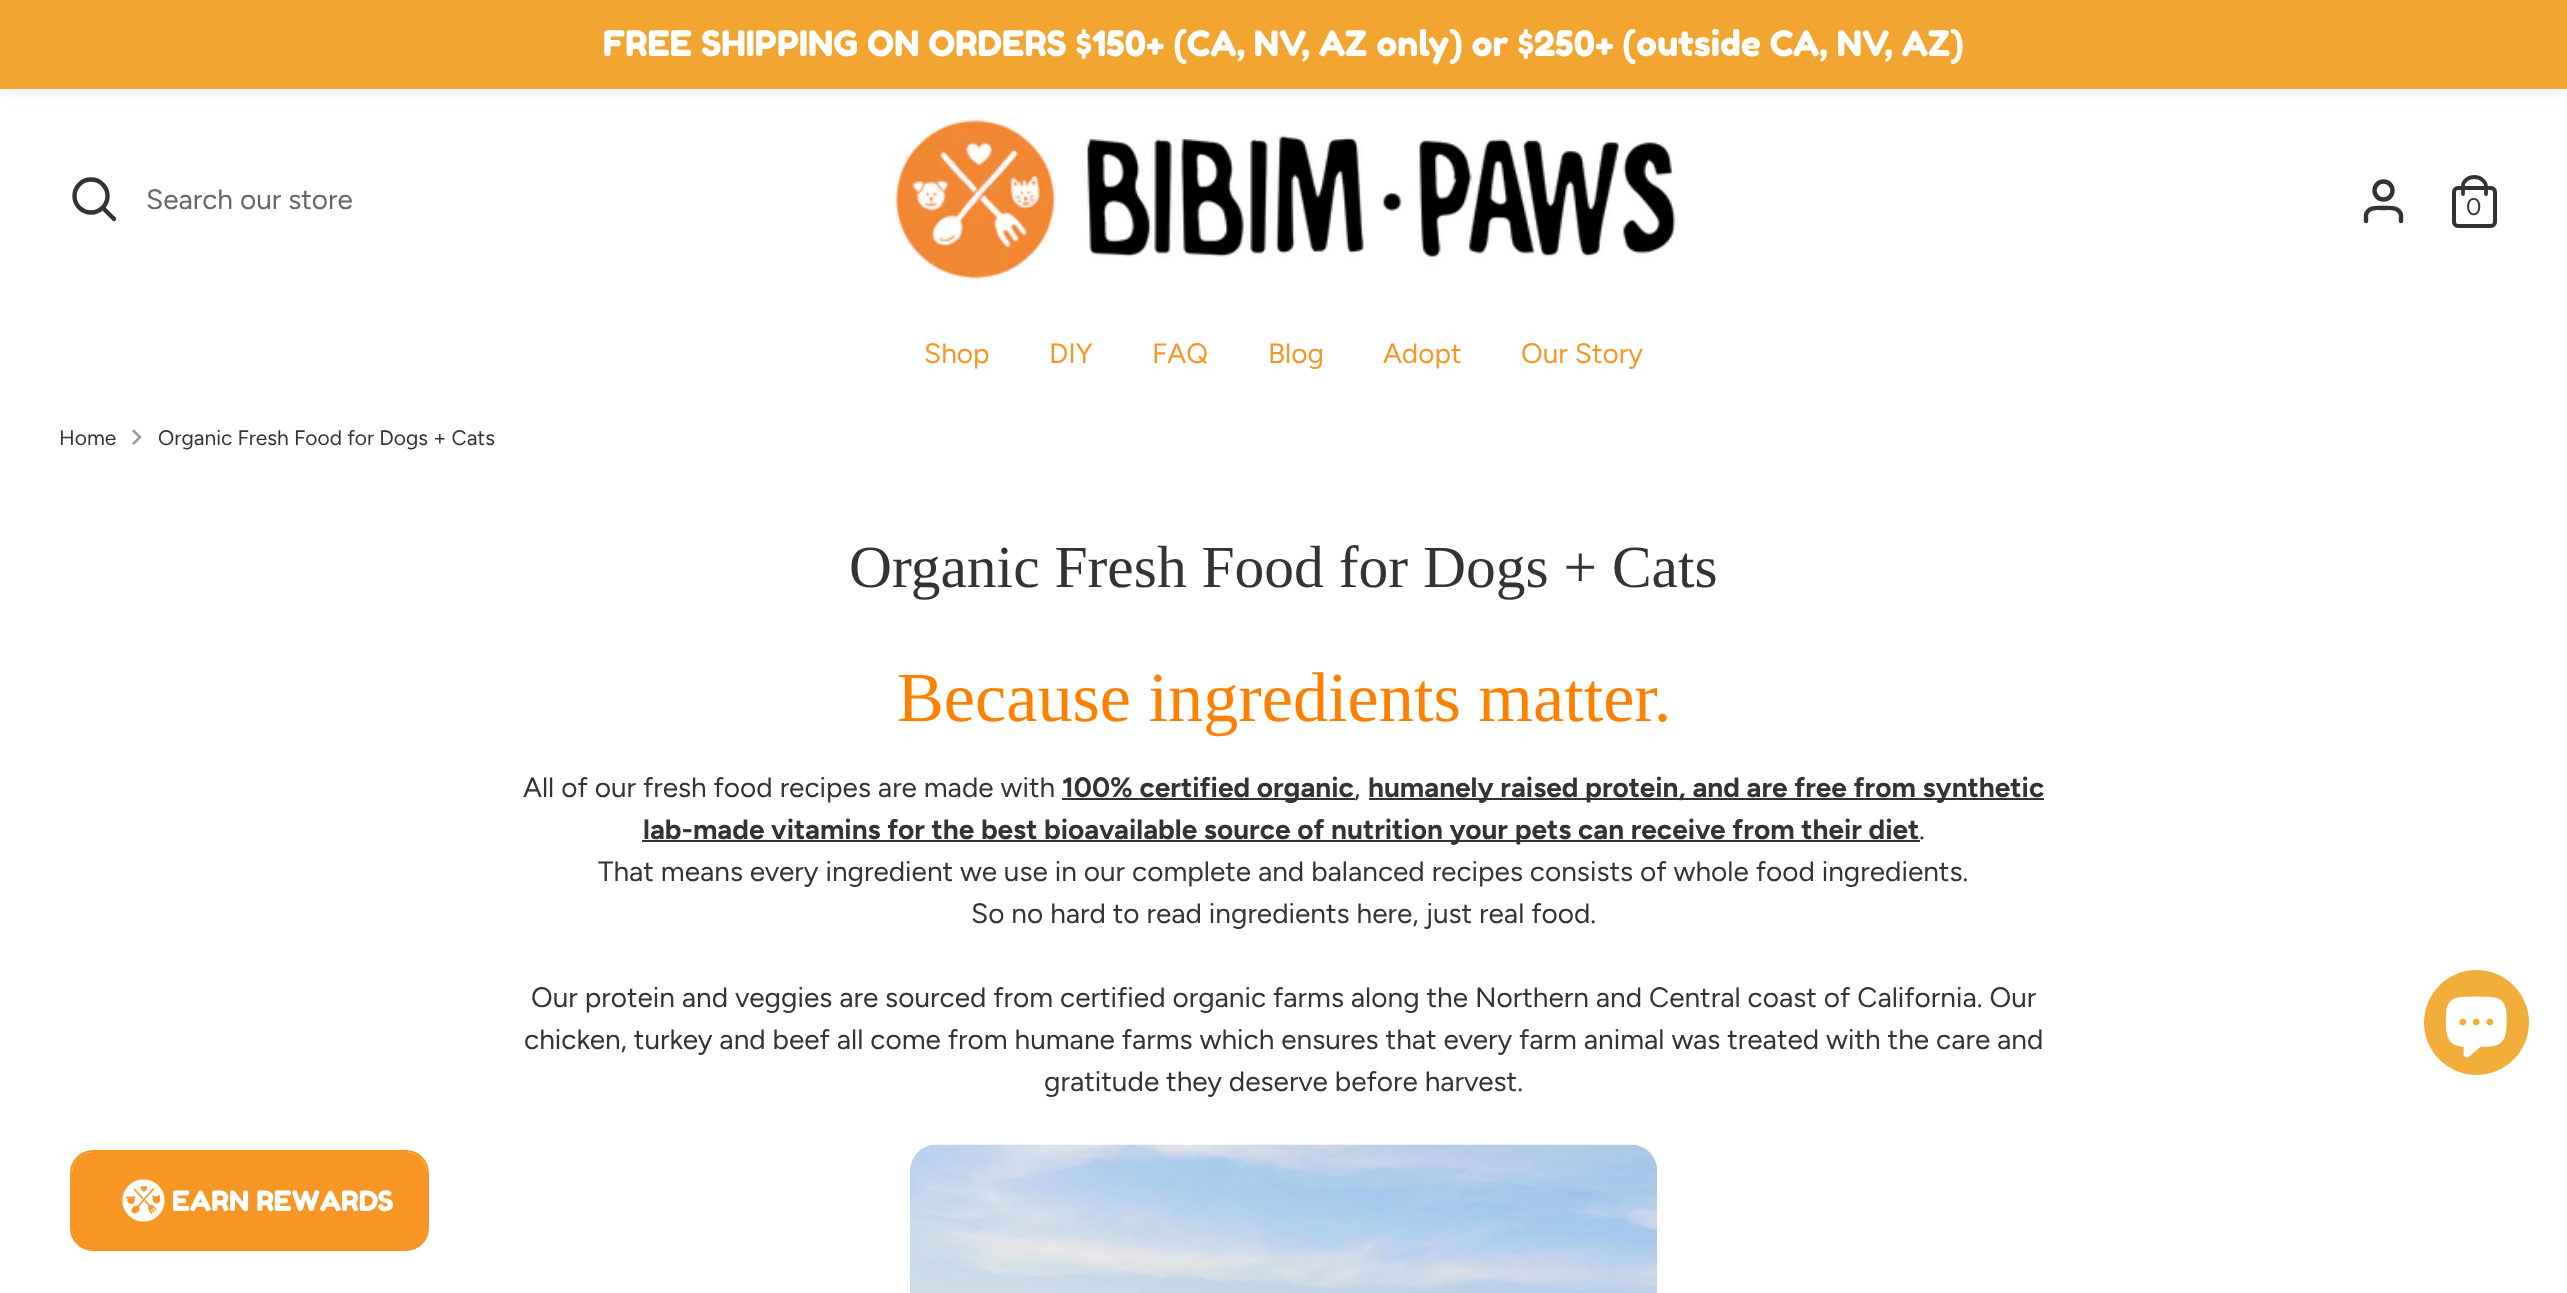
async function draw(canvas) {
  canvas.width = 2567
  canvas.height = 1293
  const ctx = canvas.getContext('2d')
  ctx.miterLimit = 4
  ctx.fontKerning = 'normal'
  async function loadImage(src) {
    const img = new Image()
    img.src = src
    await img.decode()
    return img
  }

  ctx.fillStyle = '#fff'
  ctx.fillRect(0, 0, 2567, 1293)
  ctx.drawImage(await loadImage('image0.png'), 891, 116, 787, 165)
  ctx.fillStyle = '#212b361a'
  ctx.filter = 'blur(9px)'
  ctx.beginPath()
  ctx.rect(0, 0, 2567, 89)
  ctx.fill()
  ctx.filter = 'none'
  ctx.fillStyle = '#f2a531'
  ctx.fillRect(0, 0, 2567, 89)
  ctx.font = '35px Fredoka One'
  ctx.fillStyle = '#fff'
  ctx.fillText('FREE SHIPPING ON ORDERS $150+ (CA, NV, AZ only) or $250+ (outside CA, NV, AZ)', 603, 56)
  ctx.beginPath()
  ctx.arc(91, 196, 16.5, 0, 2 * Math.PI)
  ctx.strokeStyle = '#333'
  ctx.lineWidth = 4.4
  ctx.stroke()
  ctx.beginPath()
  ctx.moveTo(114, 219)
  ctx.lineTo(103, 208)
  ctx.lineCap = 'round'
  ctx.stroke()
  ctx.font = '28px Figtree'
  ctx.fillStyle = '#666'
  ctx.fillText('Search our store', 146, 209)
  ctx.beginPath()
  ctx.moveTo(2401, 221)
  ctx.lineTo(2401, 215)
  ctx.bezierCurveTo(2399, 206.5, 2390, 208, 2383.5, 208)
  ctx.bezierCurveTo(2377, 208, 2368, 206.5, 2366, 215)
  ctx.lineTo(2366, 221)
  ctx.stroke()
  ctx.beginPath()
  ctx.arc(2383.5, 190.5, 9, 0, 2 * Math.PI)
  ctx.stroke()
  ctx.beginPath()
  ctx.roundRect(2454, 188, 41, 38, 4)
  ctx.lineWidth = 4
  ctx.stroke()
  ctx.beginPath()
  ctx.moveTo(2463, 194)
  ctx.lineTo(2463, 186)
  ctx.bezierCurveTo(2463, 181.5, 2468, 177, 2474.5, 177)
  ctx.bezierCurveTo(2480.5, 177, 2485.5, 181.5, 2486, 186)
  ctx.lineTo(2486, 194)
  ctx.lineWidth = 3.8
  ctx.stroke()
  ctx.font = '24px Figtree'
  ctx.fillStyle = '#333'
  ctx.fillText('0', 2466, 215)
  ctx.font = '28px Figtree'
  ctx.fillStyle = '#f79625'
  ctx.fillText('Shop', 924, 363)
  ctx.fillText('DIY', 1049, 363)
  ctx.fillText('FAQ', 1152, 363)
  ctx.fillText('Blog', 1268, 363)
  ctx.fillText('Adopt', 1383, 363)
  ctx.fillText('Our Story', 1521, 363)
  ctx.font = '21px Figtree'
  ctx.fillStyle = '#333'
  ctx.fillText('Home', 59, 445)
  ctx.drawImage(await loadImage('image1.png'), 132, 429, 10, 16)
  ctx.fillText('Organic Fresh Food for Dogs + Cats', 158, 445)
  ctx.font = '59.5px Liberation Serif'
  ctx.fillText('Organic Fresh Food for Dogs + Cats', 849, 587)
  ctx.font = '70.25px Liberation Serif'
  ctx.fillStyle = '#ff8000'
  ctx.fillText('Because ingredients matter.', 897, 721)
  ctx.font = '28px Figtree'
  ctx.fillStyle = '#333'
  ctx.fillText('All of our fresh food recipes are made with', 523, 797)
  ctx.fillRect(1062, 798, 293, 2)
  ctx.font = 'bold 28px Figtree'
  ctx.fillText('100% certified organic', 1062, 797)
  ctx.font = '28px Figtree'
  ctx.fillText(',', 1354, 797)
  ctx.fillRect(1369, 798, 675, 2)
  ctx.font = 'bold 28px Figtree'
  ctx.fillText('humanely raised protein, and are free from synthetic', 1368, 797)
  ctx.fillRect(642, 840, 1278, 2)
  ctx.fillText('lab-made vitamins for the best bioavailable source of nutrition your pets can receive from their diet', 643, 839)
  ctx.font = '28px Figtree'
  ctx.fillText('.', 1919, 839)
  ctx.fillText('That means every ingredient we use in our complete and balanced recipes consists of whole food ingredients.', 598, 881)
  ctx.fillText('So no hard to read ingredients here, just real food.', 971, 923)
  ctx.fillText('Our protein and veggies are sourced from certified organic farms along the Northern and Central coast of California. Our', 531, 1007)
  ctx.fillText('chicken, turkey and beef all come from humane farms which ensures that every farm animal was treated with the care and', 524, 1049)
  ctx.fillText('gratitude they deserve before harvest.', 1044, 1091)
  ctx.drawImage(await loadImage('image2.png'), 910, 1144, 748, 149)
  ctx.fillStyle = '#f2ae3b'
  ctx.beginPath()
  ctx.arc(2476.5, 1022.5, 52.5, 0, 2 * Math.PI)
  ctx.fill()
  ctx.drawImage(await loadImage('image3.png'), 2445, 996, 62, 62)
  ctx.beginPath()
  ctx.roundRect(71, 1151, 357, 99, 22)
  ctx.strokeStyle = '#f79625'
  ctx.lineWidth = 2
  ctx.stroke()
  ctx.fillStyle = '#f79625'
  ctx.beginPath()
  ctx.roundRect(72, 1152, 355, 98, 21)
  ctx.fill()
  ctx.drawImage(await loadImage('image4.png'), 122, 1179, 43, 43)
  ctx.font = '28px Fredoka One'
  ctx.fillStyle = '#fff'
  ctx.fillText('EARN REWARDS', 172, 1211)
}

draw(document.querySelector('canvas'))
